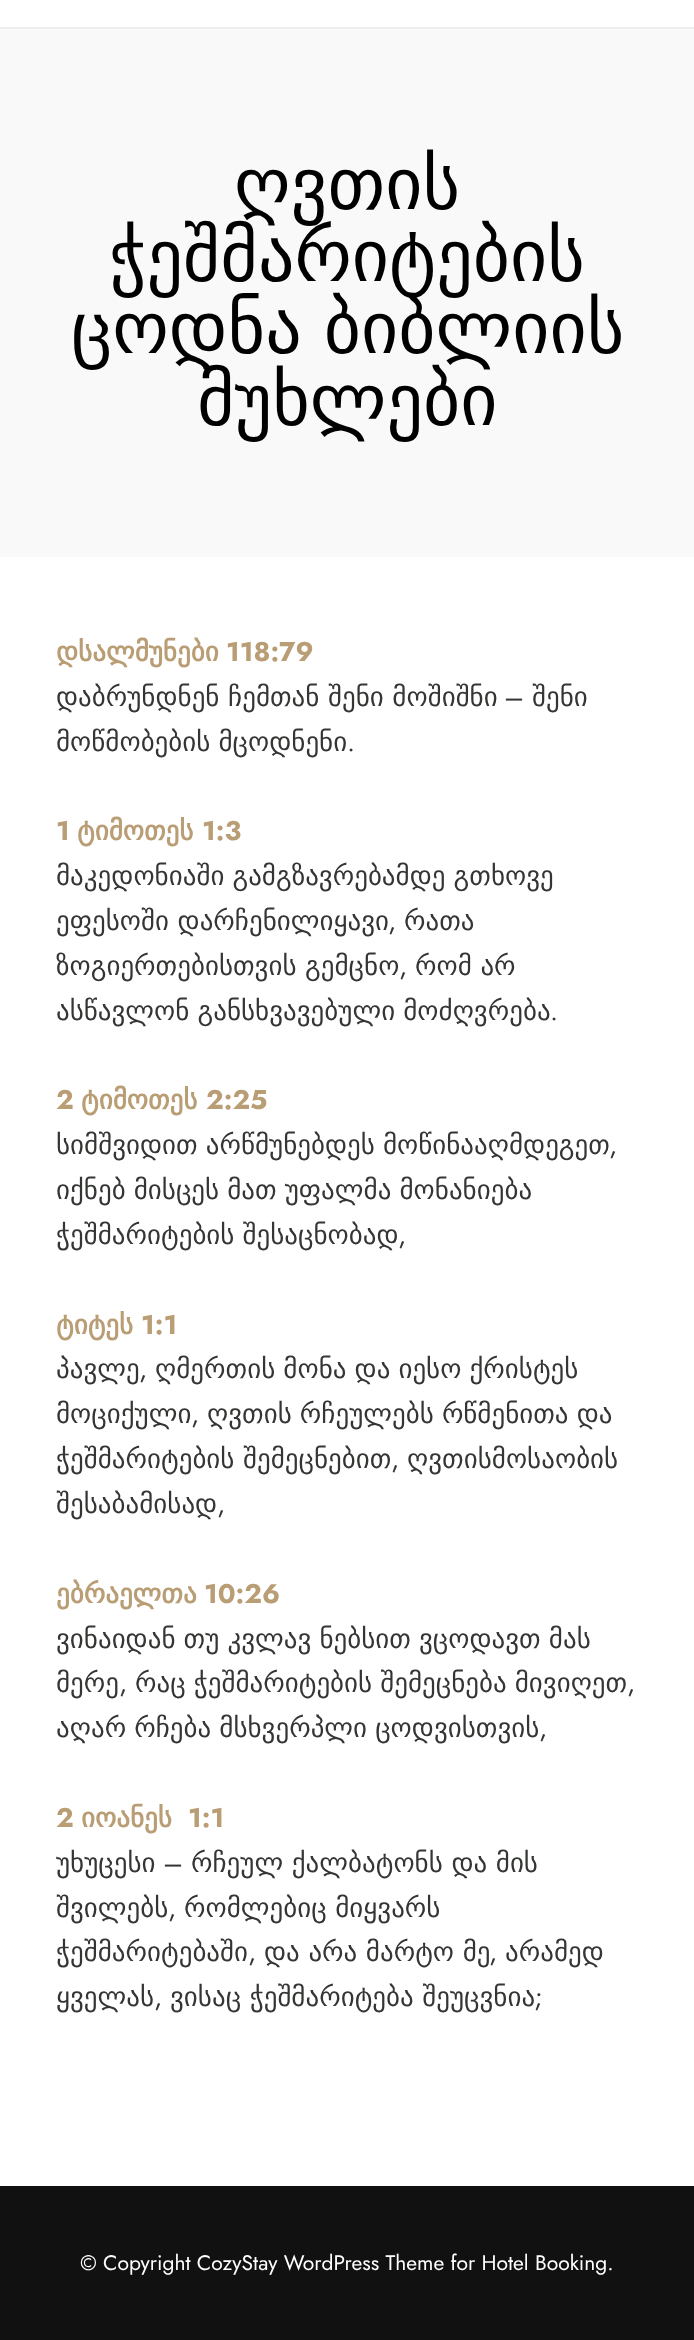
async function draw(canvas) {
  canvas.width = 694
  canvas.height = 2340
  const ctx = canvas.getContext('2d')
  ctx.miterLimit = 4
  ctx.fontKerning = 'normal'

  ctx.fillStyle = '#fff'
  ctx.fillRect(0, 0, 694, 2340)
  ctx.fillStyle = '#eee'
  ctx.fillRect(0, 27, 694, 2)
  ctx.fillStyle = '#f9f9f9'
  ctx.fillRect(0, 29, 694, 528)
  ctx.font = '72px DejaVu Sans'
  ctx.fillStyle = '#000'
  ctx.fillText('ღვთის', 234, 209)
  ctx.fillText('ჭეშმარიტების', 109, 281)
  ctx.wordSpacing = '-1px'
  ctx.fillText('ცოდნა ბიბლიის', 71, 353)
  ctx.wordSpacing = '0px'
  ctx.fillText('მუხლები', 197, 425)
  ctx.font = 'bold 27px DejaVu Sans'
  ctx.fillStyle = '#b99d75'
  ctx.fillText('დსალმუნები', 56, 661)
  ctx.font = 'bold 27px Jost'
  ctx.fillText('118:79', 226, 661)
  ctx.font = '27px DejaVu Sans'
  ctx.fillStyle = '#333632'
  ctx.fillText('დაბრუნდნენ ჩემთან შენი მოშიშნი', 56, 706)
  ctx.font = '27px Jost'
  ctx.fillText('–', 504, 706)
  ctx.font = '27px DejaVu Sans'
  ctx.fillText('შენი', 532, 706)
  ctx.wordSpacing = '-0.5px'
  ctx.fillText('მოწმობების მცოდნენი', 56, 751)
  ctx.wordSpacing = '0px'
  ctx.font = '27px Jost'
  ctx.fillText('.', 347, 751)
  ctx.font = 'bold 27px Jost'
  ctx.fillStyle = '#b99d75'
  ctx.fillText('1', 56, 840)
  ctx.font = 'bold 27px DejaVu Sans'
  ctx.fillText('ტიმოთეს', 77, 840)
  ctx.font = 'bold 27px Jost'
  ctx.fillText('1:3', 202, 840)
  ctx.wordSpacing = '-0.5px'
  ctx.font = '27px DejaVu Sans'
  ctx.fillStyle = '#333632'
  ctx.fillText('მაკედონიაში გამგზავრებამდე გთხოვე', 56, 885)
  ctx.wordSpacing = '0px'
  ctx.fillText('ეფესოში დარჩენილიყავი', 56, 930)
  ctx.font = '27px Jost'
  ctx.fillText(',', 388, 930)
  ctx.font = '27px DejaVu Sans'
  ctx.fillText('რათა', 404, 930)
  ctx.fillText('ზოგიერთებისთვის გემცნო', 56, 975)
  ctx.font = '27px Jost'
  ctx.fillText(',', 399, 975)
  ctx.font = '27px DejaVu Sans'
  ctx.fillText('რომ არ', 415, 975)
  ctx.wordSpacing = '-0.5px'
  ctx.fillText('ასწავლონ განსხვავებული მოძღვრება', 56, 1020)
  ctx.wordSpacing = '0px'
  ctx.font = '27px Jost'
  ctx.fillText('.', 550, 1020)
  ctx.font = 'bold 27px Jost'
  ctx.fillStyle = '#b99d75'
  ctx.fillText('2', 56, 1109)
  ctx.font = 'bold 27px DejaVu Sans'
  ctx.fillText('ტიმოთეს', 81, 1109)
  ctx.font = 'bold 27px Jost'
  ctx.fillText('2:25', 206, 1109)
  ctx.wordSpacing = '-0.5px'
  ctx.font = '27px DejaVu Sans'
  ctx.fillStyle = '#333632'
  ctx.fillText('სიმშვიდით არწმუნებდეს მოწინააღმდეგეთ', 56, 1154)
  ctx.wordSpacing = '0px'
  ctx.font = '27px Jost'
  ctx.fillText(',', 609, 1154)
  ctx.wordSpacing = '-0.5px'
  ctx.font = '27px DejaVu Sans'
  ctx.fillText('იქნებ მისცეს მათ უფალმა მონანიება', 56, 1199)
  ctx.fillText('ჭეშმარიტების შესაცნობად', 56, 1244)
  ctx.wordSpacing = '0px'
  ctx.font = '27px Jost'
  ctx.fillText(',', 398, 1244)
  ctx.font = 'bold 27px DejaVu Sans'
  ctx.fillStyle = '#b99d75'
  ctx.fillText('ტიტეს', 56, 1334)
  ctx.font = 'bold 27px Jost'
  ctx.fillText('1:1', 141, 1334)
  ctx.font = '27px DejaVu Sans'
  ctx.fillStyle = '#333632'
  ctx.fillText('პავლე', 56, 1378)
  ctx.font = '27px Jost'
  ctx.fillText(',', 139, 1378)
  ctx.wordSpacing = '-0.5px'
  ctx.font = '27px DejaVu Sans'
  ctx.fillText('ღმერთის მონა და იესო ქრისტეს', 155, 1378)
  ctx.wordSpacing = '0px'
  ctx.fillText('მოციქული', 56, 1423)
  ctx.font = '27px Jost'
  ctx.fillText(',', 191, 1423)
  ctx.wordSpacing = '-0.5px'
  ctx.font = '27px DejaVu Sans'
  ctx.fillText('ღვთის რჩეულებს რწმენითა და', 207, 1423)
  ctx.wordSpacing = '0px'
  ctx.fillText('ჭეშმარიტების შემეცნებით', 56, 1468)
  ctx.font = '27px Jost'
  ctx.fillText(',', 391, 1468)
  ctx.font = '27px DejaVu Sans'
  ctx.fillText('ღვთისმოსაობის', 407, 1468)
  ctx.fillText('შესაბამისად', 56, 1513)
  ctx.font = '27px Jost'
  ctx.fillText(',', 217, 1513)
  ctx.font = 'bold 27px DejaVu Sans'
  ctx.fillStyle = '#b99d75'
  ctx.fillText('ებრაელთა', 56, 1603)
  ctx.font = 'bold 27px Jost'
  ctx.fillText('10:26', 204, 1603)
  ctx.wordSpacing = '-0.5px'
  ctx.font = '27px DejaVu Sans'
  ctx.fillStyle = '#333632'
  ctx.fillText('ვინაიდან თუ კვლავ ნებსით ვცოდავთ მას', 56, 1648)
  ctx.wordSpacing = '0px'
  ctx.fillText('მერე', 56, 1692)
  ctx.font = '27px Jost'
  ctx.fillText(',', 119, 1692)
  ctx.wordSpacing = '-0.5px'
  ctx.font = '27px DejaVu Sans'
  ctx.fillText('რაც ჭეშმარიტების შემეცნება მივიღეთ', 135, 1692)
  ctx.wordSpacing = '0px'
  ctx.font = '27px Jost'
  ctx.fillText(',', 627, 1692)
  ctx.wordSpacing = '-0.5px'
  ctx.font = '27px DejaVu Sans'
  ctx.fillText('აღარ რჩება მსხვერპლი ცოდვისთვის', 56, 1737)
  ctx.wordSpacing = '0px'
  ctx.font = '27px Jost'
  ctx.fillText(',', 539, 1737)
  ctx.font = 'bold 27px Jost'
  ctx.fillStyle = '#b99d75'
  ctx.fillText('2', 56, 1827)
  ctx.font = 'bold 27px DejaVu Sans'
  ctx.fillText('იოანეს', 81, 1827)
  ctx.font = 'bold 27px Jost'
  ctx.fillText('1:1', 188, 1827)
  ctx.font = '27px DejaVu Sans'
  ctx.fillStyle = '#333632'
  ctx.fillText('უხუცესი', 56, 1872)
  ctx.font = '27px Jost'
  ctx.fillText('–', 163, 1872)
  ctx.font = '27px DejaVu Sans'
  ctx.fillText('რჩეულ ქალბატონს და მის', 191, 1872)
  ctx.fillText('შვილებს', 56, 1917)
  ctx.font = '27px Jost'
  ctx.fillText(',', 168, 1917)
  ctx.font = '27px DejaVu Sans'
  ctx.fillText('რომლებიც მიყვარს', 184, 1917)
  ctx.fillText('ჭეშმარიტებაში', 56, 1961)
  ctx.font = '27px Jost'
  ctx.fillText(',', 248, 1961)
  ctx.font = '27px DejaVu Sans'
  ctx.fillText('და არა მარტო მე', 264, 1961)
  ctx.font = '27px Jost'
  ctx.fillText(',', 489, 1961)
  ctx.font = '27px DejaVu Sans'
  ctx.fillText('არამედ', 505, 1961)
  ctx.fillText('ყველას', 56, 2006)
  ctx.font = '27px Jost'
  ctx.fillText(',', 154, 2006)
  ctx.font = '27px DejaVu Sans'
  ctx.fillText('ვისაც ჭეშმარიტება შეუცვნია', 170, 2006)
  ctx.font = '27px Jost'
  ctx.fillText(';', 534, 2006)
  ctx.fillStyle = '#111'
  ctx.fillRect(0, 2186, 694, 154)
  ctx.font = '21px Jost'
  ctx.fillStyle = '#fff'
  ctx.fillText('© Copyright CozyStay WordPress Theme for Hotel Booking.', 80, 2270)
}

draw(document.querySelector('canvas'))
